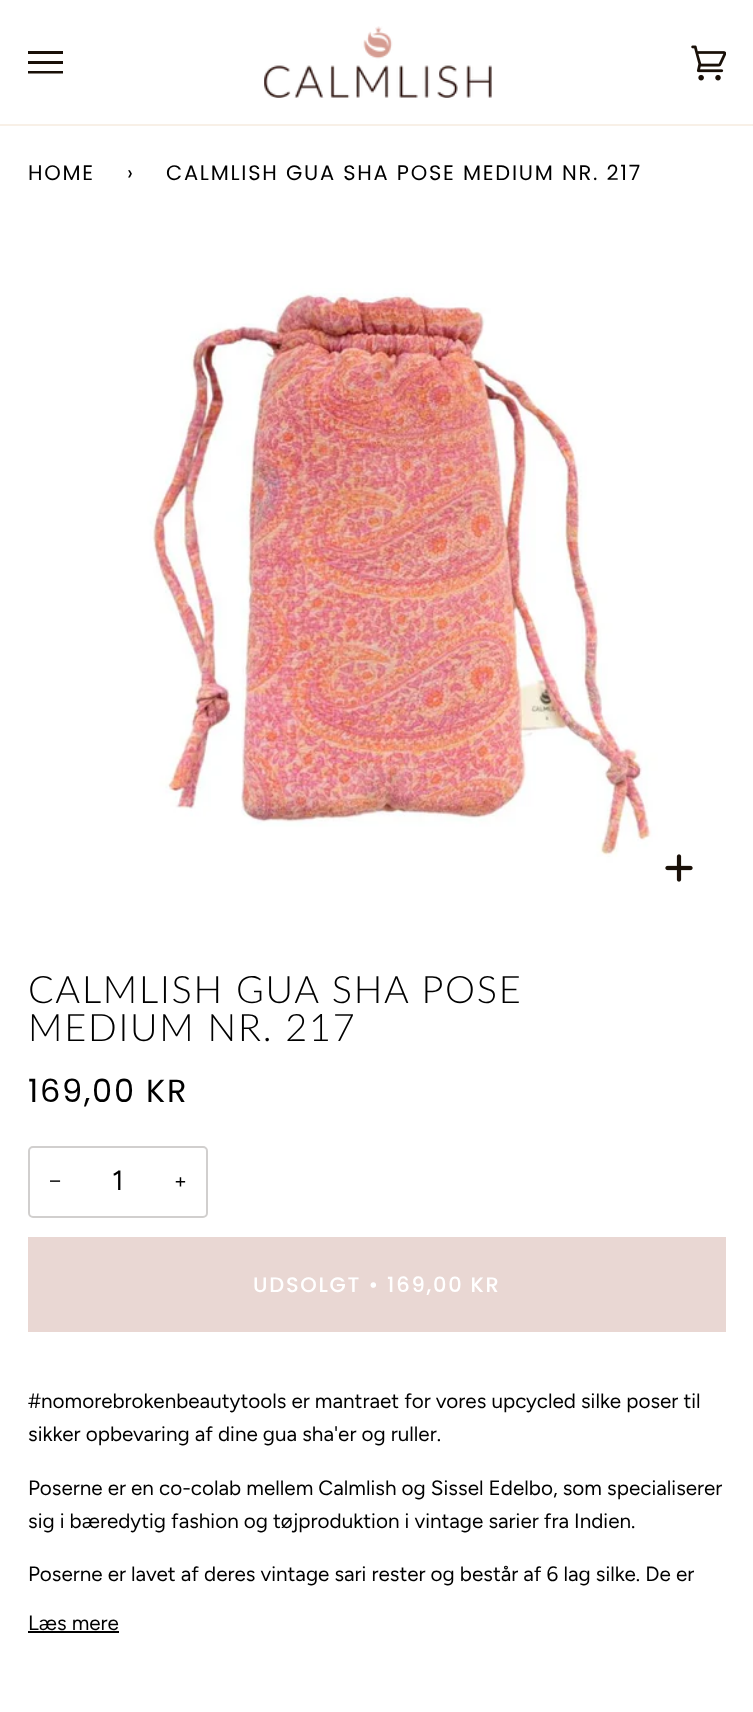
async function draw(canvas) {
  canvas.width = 753
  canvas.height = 1712
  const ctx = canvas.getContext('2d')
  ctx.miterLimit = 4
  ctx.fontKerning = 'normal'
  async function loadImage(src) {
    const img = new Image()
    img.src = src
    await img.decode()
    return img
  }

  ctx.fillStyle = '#fff'
  ctx.fillRect(0, 0, 753, 1712)
  ctx.fillStyle = '#f8f0e7'
  ctx.fillRect(0, 124, 753, 2)
  ctx.fillStyle = '#191008'
  ctx.beginPath()
  ctx.moveTo(28, 51)
  ctx.lineTo(63, 51)
  ctx.lineTo(63, 54)
  ctx.lineTo(28, 54)
  ctx.closePath()
  ctx.moveTo(28, 61)
  ctx.lineTo(63, 61)
  ctx.lineTo(63, 64)
  ctx.lineTo(28, 64)
  ctx.closePath()
  ctx.moveTo(28, 71)
  ctx.lineTo(63, 71)
  ctx.lineTo(63, 73.5)
  ctx.lineTo(28, 73.5)
  ctx.closePath()
  ctx.fill()
  ctx.drawImage(await loadImage('image0.png'), 264, 26, 228, 72)
  ctx.drawImage(await loadImage('image1.png'), 691, 45, 35, 36)
  ctx.letterSpacing = '1.75px'
  ctx.font = '21px Poppins'
  ctx.fillStyle = '#000'
  ctx.fillText('HOME', 28, 180)
  ctx.fillText('›', 127, 180)
  ctx.fillText('CALMLISH GUA SHA POSE MEDIUM NR. 217', 166, 180)
  ctx.drawImage(await loadImage('image2.png'), 28, 217, 698, 698)
  ctx.drawImage(await loadImage('image3.png'), 665, 854, 28, 28)
  ctx.font = '300 37.9px Lato'
  ctx.fillText('CALMLISH GUA SHA POSE', 28, 1003)
  ctx.fillText('MEDIUM NR. 217', 28, 1041)
  ctx.font = '32px Poppins'
  ctx.fillText('169,00 KR', 28, 1102)
  ctx.beginPath()
  ctx.roundRect(29, 1147, 178, 70, 4)
  ctx.strokeStyle = '#d1cfce'
  ctx.lineWidth = 2
  ctx.stroke()
  ctx.letterSpacing = '0px'
  ctx.font = '20.7px Liberation Sans'
  ctx.fillText('−', 49, 1188)
  ctx.font = '28px Figtree'
  ctx.fillText('1', 112, 1190)
  ctx.font = '20.7px Figtree'
  ctx.fillText('+', 174, 1188)
  ctx.fillStyle = '#e9d7d3'
  ctx.fillRect(28, 1237, 698, 95)
  ctx.letterSpacing = '1.75px'
  ctx.font = '500 21px Poppins'
  ctx.fillStyle = '#fff'
  ctx.fillText('UDSOLGT • 169,00 KR', 253, 1292)
  ctx.letterSpacing = '0px'
  ctx.font = '20.7px Figtree'
  ctx.fillStyle = '#000'
  ctx.fillText('#nomorebrokenbeautytools er mantraet for vores upcycled silke poser til', 28, 1408)
  ctx.fillText('sikker opbevaring af dine gua sha\'er og ruller.', 28, 1441)
  ctx.fillText('Poserne er en co-colab mellem Calmlish og Sissel Edelbo, som specialiserer', 28, 1495)
  ctx.fillText('sig i bæredytig fashion og tøjproduktion i vintage sarier fra Indien.', 28, 1528)
  ctx.fillText('Poserne er lavet af deres vintage sari rester og består af 6 lag silke. De er', 28, 1581)
  ctx.fillText('Læs mere', 28, 1630)
  ctx.fillRect(28, 1631, 91, 2)
}

draw(document.querySelector('canvas'))
